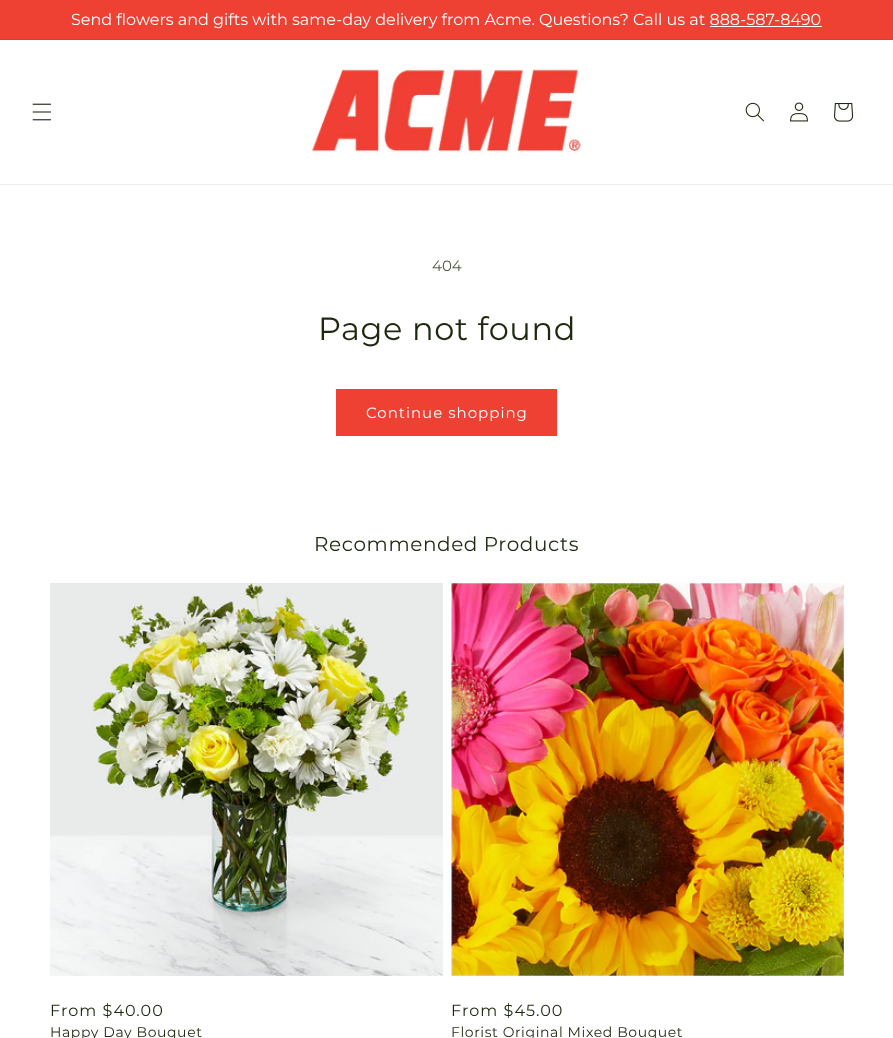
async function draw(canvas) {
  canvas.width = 893
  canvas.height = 1038
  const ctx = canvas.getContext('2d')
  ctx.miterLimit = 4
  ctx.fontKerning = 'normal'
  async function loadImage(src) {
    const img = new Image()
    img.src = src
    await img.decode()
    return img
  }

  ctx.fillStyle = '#fff'
  ctx.fillRect(0, 0, 893, 1038)
  ctx.fillStyle = '#ef4034'
  ctx.fillRect(0, 0, 893, 39)
  ctx.fillStyle = '#de3e31'
  ctx.fillRect(0, 39, 893, 1)
  ctx.font = '16px Montserrat'
  ctx.fillStyle = '#fff'
  ctx.fillText('Send flowers and gifts with same-day delivery from Acme. Questions? Call us at 888-587-8490', 71, 25)
  ctx.fillRect(710, 26, 112, 1)
  ctx.fillStyle = '#edeeec'
  ctx.fillRect(0, 184, 893, 1)
  ctx.drawImage(await loadImage('image0.png'), 32, 103, 20, 18)
  ctx.drawImage(await loadImage('image1.png'), 311, 66, 271, 91)
  ctx.drawImage(await loadImage('image2.png'), 745, 102, 19, 20)
  ctx.drawImage(await loadImage('image3.png'), 790, 102, 18, 20)
  ctx.drawImage(await loadImage('image4.png'), 834, 103, 20, 19)
  ctx.font = '15px Montserrat'
  ctx.fillStyle = '#565e4b'
  ctx.fillText('404', 432, 271)
  ctx.letterSpacing = '0.6px'
  ctx.font = '32px Montserrat'
  ctx.fillStyle = '#1e280f'
  ctx.fillText('Page not found', 318, 340)
  ctx.fillStyle = '#ef4034'
  ctx.fillRect(336, 389, 221, 47)
  ctx.letterSpacing = '1px'
  ctx.font = '15px Montserrat'
  ctx.fillStyle = '#fff'
  ctx.fillText('Continue shopping', 366, 418)
  ctx.letterSpacing = '0.6px'
  ctx.font = '20px Montserrat'
  ctx.fillStyle = '#1e280f'
  ctx.fillText('Recommended Products', 314, 551)
  ctx.drawImage(await loadImage('image5.png'), 50, 583, 393, 393)
  ctx.letterSpacing = '1px'
  ctx.font = '16px Montserrat'
  ctx.fillText('From $40.00', 50, 1016)
  ctx.letterSpacing = '0.6px'
  ctx.font = '14px Montserrat'
  ctx.fillText('Happy Day Bouquet', 50, 1037)
  ctx.drawImage(await loadImage('image6.png'), 451, 583, 393, 393)
  ctx.letterSpacing = '1px'
  ctx.font = '16px Montserrat'
  ctx.fillText('From $45.00', 451, 1016)
  ctx.letterSpacing = '0.6px'
  ctx.font = '14px Montserrat'
  ctx.fillText('Florist Original Mixed Bouquet', 451, 1037)
}

draw(document.querySelector('canvas'))
